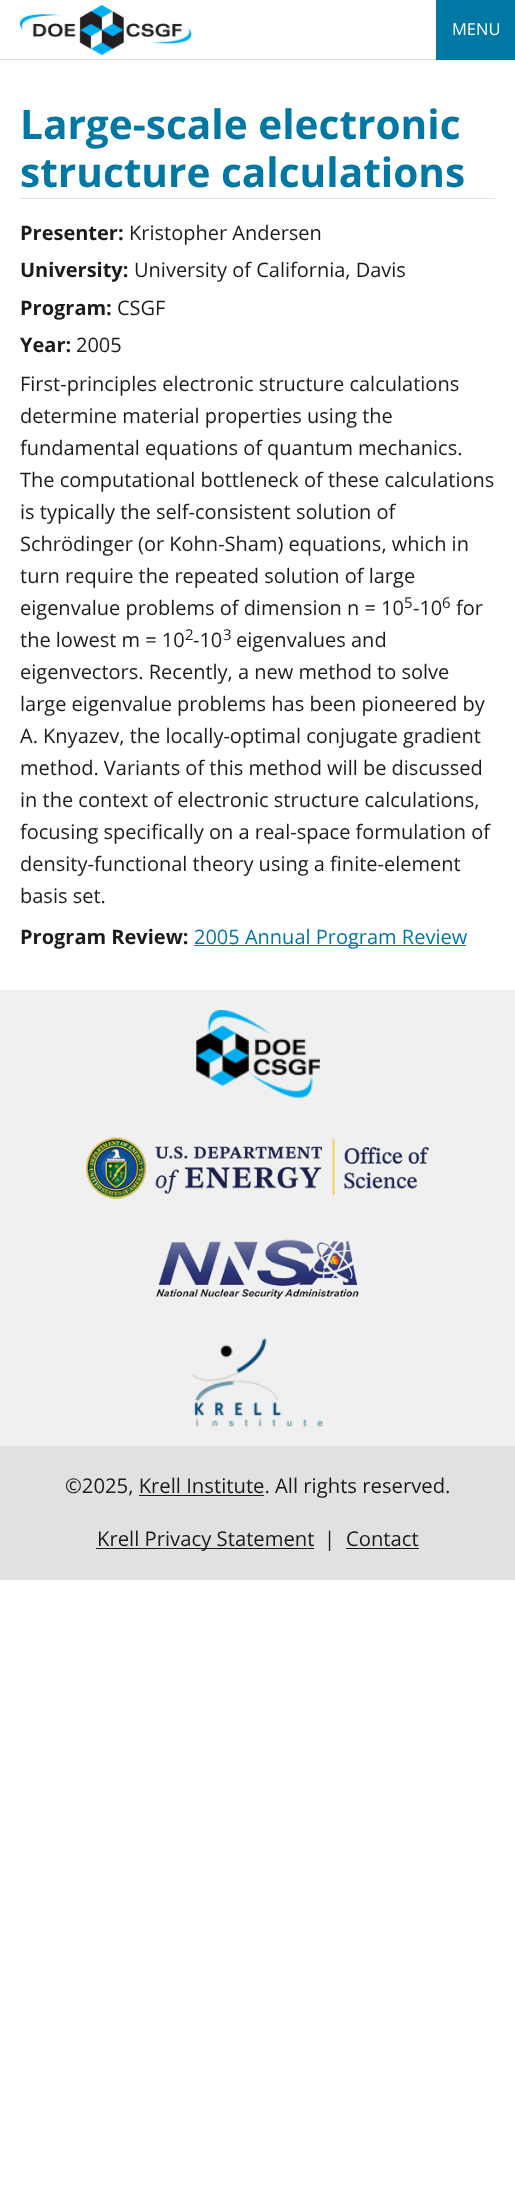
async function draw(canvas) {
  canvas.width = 515
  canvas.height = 2202
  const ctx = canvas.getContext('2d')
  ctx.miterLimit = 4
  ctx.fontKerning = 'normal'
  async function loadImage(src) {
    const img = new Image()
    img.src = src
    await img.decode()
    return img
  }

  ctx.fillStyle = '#fff'
  ctx.fillRect(0, 0, 515, 2202)
  ctx.fillStyle = '#dfe1e2'
  ctx.fillRect(0, 59, 436, 1)
  ctx.drawImage(await loadImage('image0.png'), 20, 5, 172, 50)
  ctx.fillStyle = '#0078a3'
  ctx.fillRect(436, 0, 79, 60)
  ctx.font = '16.5px Open Sans'
  ctx.fillStyle = '#fff'
  ctx.fillText('MENU', 452, 35)
  ctx.fillStyle = '#dfe1e2'
  ctx.fillRect(20, 198, 475, 1)
  ctx.font = 'bold 40.6px Open Sans'
  ctx.fillStyle = '#0078a3'
  ctx.fillText('Large-scale electronic', 20, 139)
  ctx.fillText('structure calculations', 20, 187)
  ctx.font = 'bold 20px Open Sans'
  ctx.fillStyle = '#1b1b1b'
  ctx.fillText('Presenter:', 20, 240)
  ctx.font = '20px Open Sans'
  ctx.fillText('Kristopher Andersen', 129, 240)
  ctx.font = 'bold 20px Open Sans'
  ctx.fillText('University:', 20, 277)
  ctx.font = '20px Open Sans'
  ctx.fillText('University of California, Davis', 134, 277)
  ctx.font = 'bold 20px Open Sans'
  ctx.fillText('Program:', 20, 315)
  ctx.font = '20px Open Sans'
  ctx.fillText('CSGF', 117, 315)
  ctx.font = 'bold 20px Open Sans'
  ctx.fillText('Year:', 20, 352)
  ctx.font = '20px Open Sans'
  ctx.fillText('2005', 76, 352)
  ctx.fillText('First-principles electronic structure calculations', 20, 391)
  ctx.fillText('determine material properties using the', 20, 423)
  ctx.fillText('fundamental equations of quantum mechanics.', 20, 455)
  ctx.fillText('The computational bottleneck of these calculations', 20, 487)
  ctx.fillText('is typically the self-consistent solution of', 20, 519)
  ctx.fillText('Schrödinger (or Kohn-Sham) equations, which in', 20, 551)
  ctx.fillText('turn require the repeated solution of large', 20, 583)
  ctx.fillText('eigenvalue problems of dimension n = 10', 20, 615)
  ctx.font = '15px Open Sans'
  ctx.fillText('5', 404, 608)
  ctx.font = '20px Open Sans'
  ctx.fillText('-10', 413, 615)
  ctx.font = '15px Open Sans'
  ctx.fillText('6', 442, 608)
  ctx.font = '20px Open Sans'
  ctx.fillText('for', 456, 615)
  ctx.fillText('the lowest m = 10', 20, 647)
  ctx.font = '15px Open Sans'
  ctx.fillText('2', 185, 640)
  ctx.font = '20px Open Sans'
  ctx.fillText('-10', 193, 647)
  ctx.font = '15px Open Sans'
  ctx.fillText('3', 223, 640)
  ctx.font = '20px Open Sans'
  ctx.fillText('eigenvalues and', 236, 647)
  ctx.fillText('eigenvectors. Recently, a new method to solve', 20, 679)
  ctx.fillText('large eigenvalue problems has been pioneered by', 20, 711)
  ctx.fillText('A. Knyazev, the locally-optimal conjugate gradient', 20, 743)
  ctx.fillText('method. Variants of this method will be discussed', 20, 775)
  ctx.fillText('in the context of electronic structure calculations,', 20, 807)
  ctx.fillText('focusing specifically on a real-space formulation of', 20, 839)
  ctx.fillText('density-functional theory using a finite-element', 20, 871)
  ctx.fillText('basis set.', 20, 903)
  ctx.font = 'bold 20px Open Sans'
  ctx.fillText('Program Review:', 20, 944)
  ctx.fillStyle = '#0078a3'
  ctx.fillRect(194, 945, 272, 1)
  ctx.font = '20px Open Sans'
  ctx.fillText('2005 Annual Program Review', 194, 944)
  ctx.fillStyle = '#f0f0f0'
  ctx.fillRect(0, 990, 515, 456)
  ctx.drawImage(await loadImage('image1.png'), 196, 1010, 124, 88)
  ctx.drawImage(await loadImage('image2.png'), 86, 1137, 343, 62)
  ctx.drawImage(await loadImage('image3.png'), 155, 1239, 204, 60)
  ctx.drawImage(await loadImage('image4.png'), 192, 1338, 131, 89)
  ctx.fillStyle = '#dfe1e2'
  ctx.fillRect(0, 1446, 515, 134)
  ctx.font = '20.25px Open Sans'
  ctx.fillStyle = '#1b1b1b'
  ctx.fillText('©2025, Krell Institute. All rights reserved.', 65, 1493)
  ctx.fillRect(139, 1495, 125, 1)
  ctx.fillRect(96, 1548, 218, 1)
  ctx.fillText('Krell Privacy Statement', 97, 1546)
  ctx.fillText('|', 324, 1546)
  ctx.fillText('Contact', 346, 1546)
  ctx.fillRect(346, 1548, 73, 1)
}

draw(document.querySelector('canvas'))
